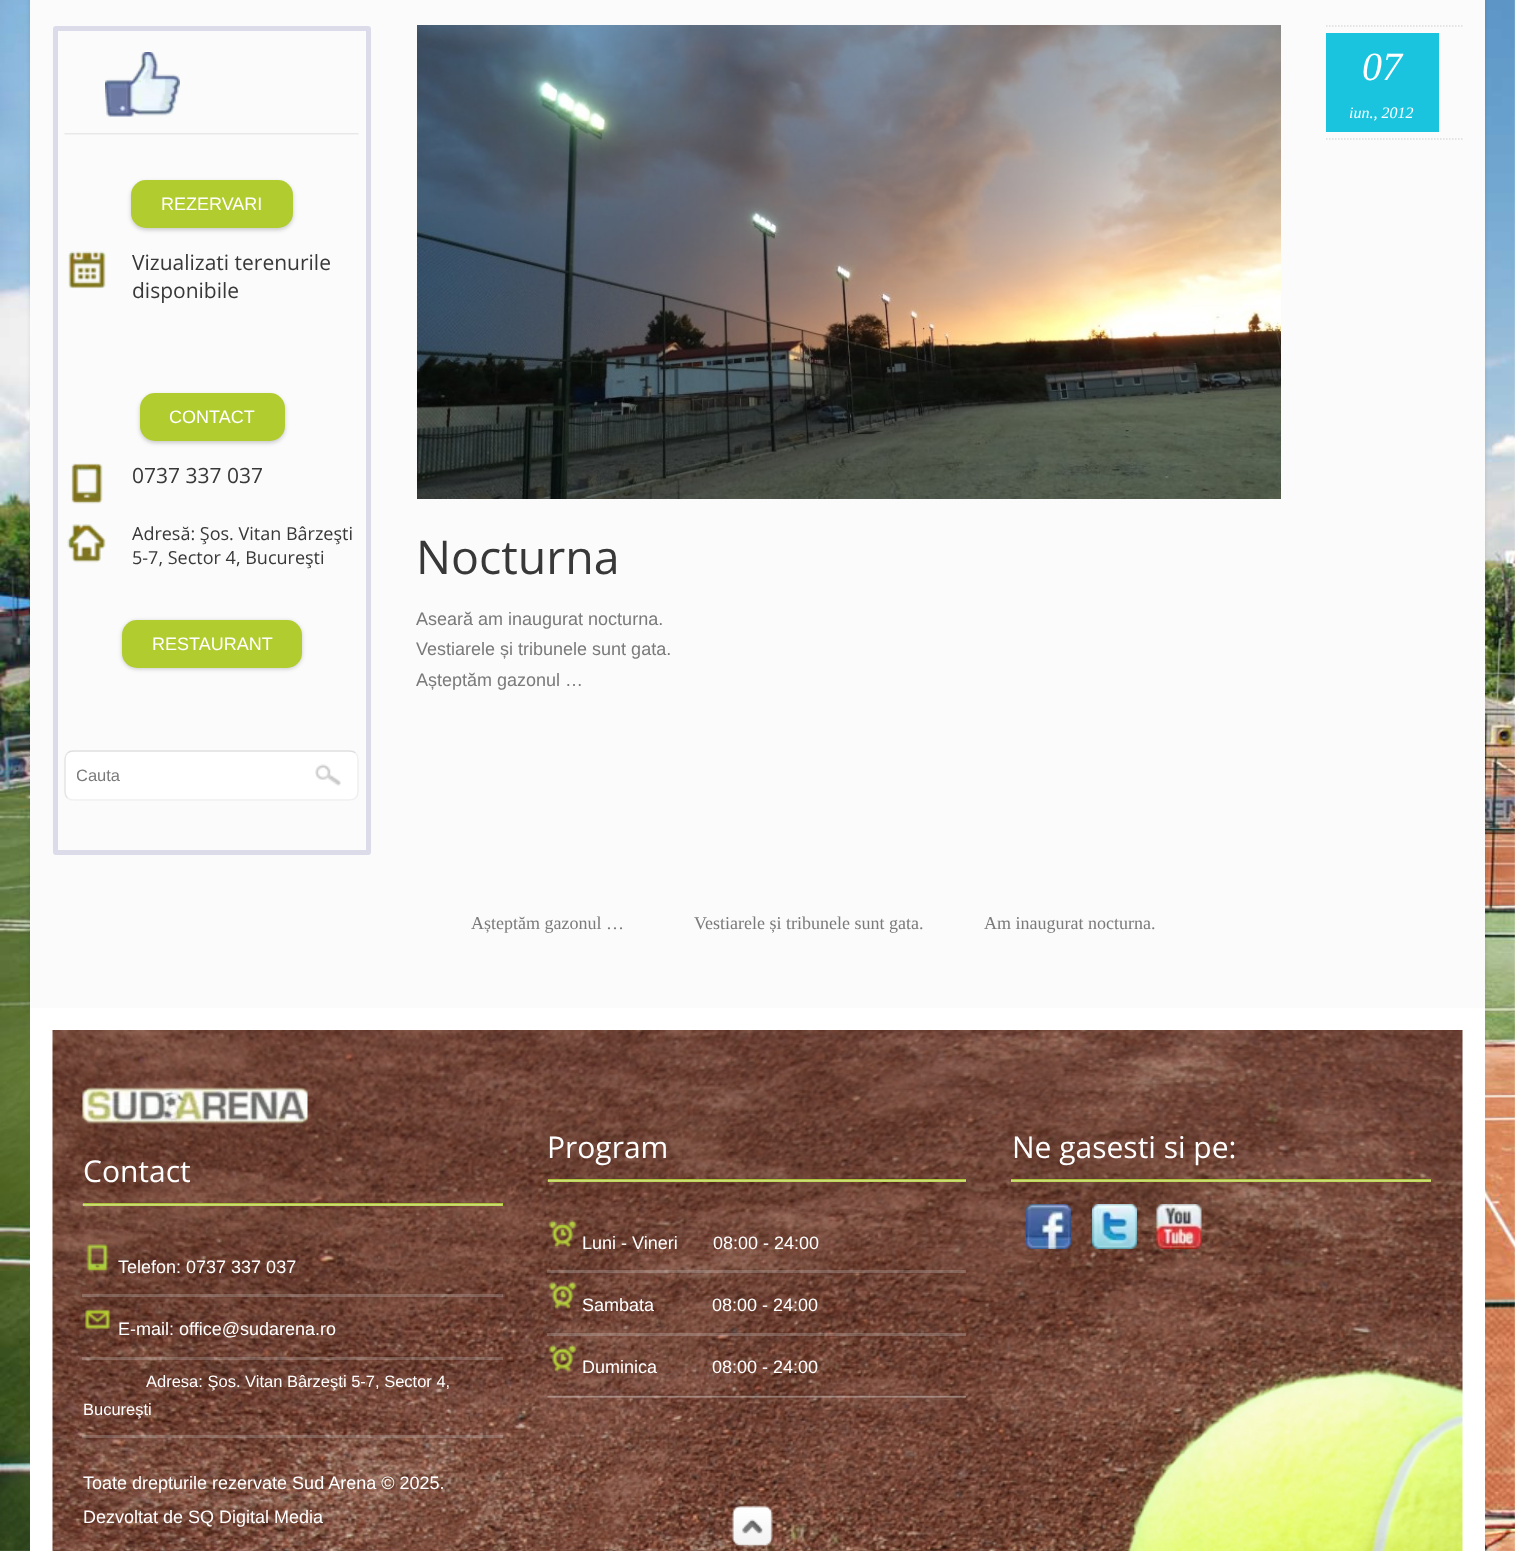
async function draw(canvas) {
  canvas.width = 1515
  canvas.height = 1551
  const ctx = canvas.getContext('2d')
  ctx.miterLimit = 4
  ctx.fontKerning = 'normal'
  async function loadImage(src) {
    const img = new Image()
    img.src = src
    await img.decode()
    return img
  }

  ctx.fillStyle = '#fff'
  ctx.fillRect(0, 0, 1515, 1551)
  ctx.drawImage(await loadImage('image0.png'), 0, 0, 1515, 1551)
  ctx.fillStyle = '#0000001a'
  ctx.filter = 'blur(2px)'
  ctx.beginPath()
  ctx.roundRect(30, -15, 1455, 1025, 9)
  ctx.fill()
  ctx.filter = 'none'
  ctx.fillStyle = '#fbfbfb'
  ctx.fillRect(30, 0, 1455, 1008)
  ctx.beginPath()
  ctx.roundRect(55.5, 28.5, 313, 824, 0.5)
  ctx.strokeStyle = '#dbdbea'
  ctx.lineWidth = 5
  ctx.stroke()
  ctx.drawImage(await loadImage('image1.png'), 105, 52, 75, 65)
  ctx.drawImage(await loadImage('image2.png'), 64, 133, 295, 2)
  ctx.fillStyle = '#00000033'
  ctx.filter = 'blur(2px)'
  ctx.beginPath()
  ctx.roundRect(131, 182, 162, 48, 15)
  ctx.fill()
  ctx.filter = 'none'
  ctx.fillStyle = '#b1cc2f'
  ctx.beginPath()
  ctx.roundRect(131, 180, 162, 48, 15)
  ctx.fill()
  ctx.font = '18px Liberation Sans'
  ctx.fillStyle = '#fff'
  ctx.fillText('REZERVARI', 161, 210)
  ctx.drawImage(await loadImage('image3.png'), 68, 251, 38, 38)
  ctx.font = '21px Open Sans'
  ctx.fillStyle = '#383838'
  ctx.fillText('Vizualizati terenurile', 132, 270)
  ctx.fillText('disponibile', 132, 298)
  ctx.fillStyle = '#00000033'
  ctx.filter = 'blur(2px)'
  ctx.beginPath()
  ctx.roundRect(140, 395, 145, 48, 15)
  ctx.fill()
  ctx.filter = 'none'
  ctx.fillStyle = '#b1cc2f'
  ctx.beginPath()
  ctx.roundRect(140, 393, 145, 48, 15)
  ctx.fill()
  ctx.font = '18px Liberation Sans'
  ctx.fillStyle = '#fff'
  ctx.fillText('CONTACT', 169, 423)
  ctx.drawImage(await loadImage('image4.png'), 71, 463, 32, 41)
  ctx.font = '21px Open Sans'
  ctx.fillStyle = '#383838'
  ctx.fillText('0737 337 037', 132, 483)
  ctx.drawImage(await loadImage('image5.png'), 67, 524, 39, 39)
  ctx.font = '18px Open Sans'
  ctx.fillText('Adresă: Şos. Vitan Bârzeşti', 132, 540)
  ctx.fillText('5-7, Sector 4, Bucureşti', 132, 564)
  ctx.fillStyle = '#00000033'
  ctx.filter = 'blur(2px)'
  ctx.beginPath()
  ctx.roundRect(122, 621, 180, 48, 15)
  ctx.fill()
  ctx.filter = 'none'
  ctx.fillStyle = '#b1cc2f'
  ctx.beginPath()
  ctx.roundRect(122, 620, 180, 48, 15)
  ctx.fill()
  ctx.font = '18px Liberation Sans'
  ctx.fillStyle = '#fff'
  ctx.fillText('RESTAURANT', 152, 650)
  ctx.beginPath()
  ctx.roundRect(65, 750, 294, 51, 9)
  ctx.fill()
  ctx.beginPath()
  ctx.moveTo(67.5, 753)
  ctx.bezierCurveTo(69, 751.5, 71.5, 751, 73.5, 751)
  ctx.lineTo(349.5, 751)
  ctx.bezierCurveTo(351.5, 751, 354, 751.5, 355.5, 753)
  ctx.strokeStyle = '#dfdfdf'
  ctx.lineWidth = 1.5
  ctx.stroke()
  ctx.beginPath()
  ctx.moveTo(355.5, 753)
  ctx.bezierCurveTo(357, 754.5, 358, 757, 358, 759)
  ctx.lineTo(358, 792)
  ctx.bezierCurveTo(358, 794, 357, 796.5, 355.5, 798)
  ctx.bezierCurveTo(354, 799.5, 351.5, 800, 349.5, 800)
  ctx.lineTo(73.5, 800)
  ctx.bezierCurveTo(71.5, 800, 69, 799.5, 67.5, 798)
  ctx.strokeStyle = '#f0f0f0'
  ctx.stroke()
  ctx.beginPath()
  ctx.moveTo(67.5, 798)
  ctx.bezierCurveTo(66, 796.5, 65, 794, 65, 792)
  ctx.lineTo(65, 759)
  ctx.bezierCurveTo(65, 757, 66, 754.5, 67.5, 753)
  ctx.strokeStyle = '#e5e5e5'
  ctx.stroke()
  ctx.save()
  ctx.beginPath()
  ctx.rect(77, 767, 271, 18)
  ctx.clip()
  ctx.font = '16.5px Liberation Sans'
  ctx.fillStyle = '#7a7a7a'
  ctx.fillText('Cauta', 76, 781)
  ctx.restore()
  ctx.drawImage(await loadImage('image6.png'), 315, 764, 26, 22)
  ctx.drawImage(await loadImage('image7.png'), 417, 25, 864, 474)
  ctx.beginPath()
  ctx.moveTo(1326, 26)
  ctx.lineTo(1462.5, 26)
  ctx.strokeStyle = '#ddd'
  ctx.setLineDash([1.5, 1.5])
  ctx.stroke()
  ctx.beginPath()
  ctx.moveTo(1326, 139)
  ctx.lineTo(1462.5, 139)
  ctx.stroke()
  ctx.fillStyle = '#1bc4de'
  ctx.fillRect(1326, 33, 113, 99)
  ctx.font = 'italic 40px Liberation Serif'
  ctx.fillStyle = '#fff'
  ctx.fillText('07', 1362, 80)
  ctx.font = 'italic 16px Liberation Serif'
  ctx.fillText('iun., 2012', 1349, 118)
  ctx.font = '46.5px Open Sans'
  ctx.fillStyle = '#383838'
  ctx.fillText('Nocturna', 416, 574)
  ctx.font = '18px Liberation Sans'
  ctx.fillStyle = '#7a7a7a'
  ctx.fillText('Aseară am inaugurat nocturna.', 416, 625)
  ctx.fillText('Vestiarele și tribunele sunt gata.', 416, 655)
  ctx.fillText('Așteptăm gazonul …', 416, 686)
  ctx.font = '18px Liberation Serif'
  ctx.fillText('Așteptăm gazonul …', 471, 929)
  ctx.fillText('Vestiarele și tribunele sunt gata.', 694, 929)
  ctx.fillText('Am inaugurat nocturna.', 984, 929)
  ctx.fillStyle = '#fff'
  ctx.fillRect(30, 1008, 1455, 543)
  ctx.drawImage(await loadImage('image8.png'), 52, 1030, 1411, 521)
  ctx.drawImage(await loadImage('image9.png'), 82, 1086, 226, 38)
  ctx.font = '30px Open Sans'
  ctx.fillText('Contact', 83, 1182)
  ctx.fillStyle = '#b1cc2f'
  ctx.fillRect(83, 1203, 420, 3)
  ctx.drawImage(await loadImage('image10.png'), 82, 1202, 421, 4)
  ctx.drawImage(await loadImage('image11.png'), 86, 1244, 23, 28)
  ctx.font = '18px Liberation Sans'
  ctx.fillStyle = '#fff'
  ctx.fillText('Telefon: 0737 337 037', 118, 1273)
  ctx.fillStyle = '#dbdbdb40'
  ctx.fillRect(82, 1294, 421, 3)
  ctx.drawImage(await loadImage('image12.png'), 85, 1309, 26, 21)
  ctx.fillStyle = '#fff'
  ctx.fillText('E-mail: office@sudarena.ro', 118, 1335)
  ctx.fillStyle = '#dbdbdb40'
  ctx.fillRect(82, 1357, 421, 3)
  ctx.font = '16.5px Liberation Sans'
  ctx.fillStyle = '#fff'
  ctx.fillText('Adresa: Şos. Vitan Bârzeşti 5-7, Sector 4,', 146, 1387)
  ctx.fillText('Bucureşti', 83, 1415)
  ctx.fillStyle = '#d7d7d740'
  ctx.fillRect(82, 1435, 421, 3)
  ctx.font = '18px Liberation Sans'
  ctx.fillStyle = '#fff'
  ctx.fillText('Toate drepturile rezervate Sud Arena © 2025.', 83, 1489)
  ctx.fillText('Dezvoltat de SQ Digital Media', 83, 1523)
  ctx.font = '30px Open Sans'
  ctx.fillText('Program', 547, 1158)
  ctx.fillStyle = '#b1cc2f'
  ctx.fillRect(548, 1179, 418, 3)
  ctx.drawImage(await loadImage('image13.png'), 547, 1178, 419, 4)
  ctx.drawImage(await loadImage('image14.png'), 548, 1220, 29, 28)
  ctx.font = '18px Liberation Sans'
  ctx.fillStyle = '#fff'
  ctx.fillText('Luni - Vineri', 582, 1249)
  ctx.fillText('08:00 - 24:00', 713, 1249)
  ctx.fillStyle = '#dbdbdb40'
  ctx.fillRect(547, 1270, 419, 3)
  ctx.drawImage(await loadImage('image15.png'), 548, 1281, 29, 29)
  ctx.fillStyle = '#fff'
  ctx.fillText('Sambata', 582, 1311)
  ctx.fillText('08:00 - 24:00', 712, 1311)
  ctx.fillStyle = '#dbdbdb40'
  ctx.fillRect(547, 1333, 419, 3)
  ctx.drawImage(await loadImage('image16.png'), 548, 1344, 29, 29)
  ctx.fillStyle = '#fff'
  ctx.fillText('Duminica', 582, 1373)
  ctx.fillText('08:00 - 24:00', 712, 1373)
  ctx.drawImage(await loadImage('image17.png'), 547, 1394, 419, 4)
  ctx.font = '30px Open Sans'
  ctx.fillText('Ne gasesti si pe:', 1012, 1158)
  ctx.fillStyle = '#b1cc2f'
  ctx.fillRect(1011, 1179, 420, 3)
  ctx.drawImage(await loadImage('image18.png'), 1011, 1178, 420, 4)
  ctx.drawImage(await loadImage('image19.png'), 1026, 1204, 45, 45)
  ctx.drawImage(await loadImage('image20.png'), 1092, 1204, 45, 45)
  ctx.drawImage(await loadImage('image21.png'), 1156, 1204, 46, 45)
  ctx.drawImage(await loadImage('image22.png'), 731, 1505, 42, 44)
}

draw(document.querySelector('canvas'))
